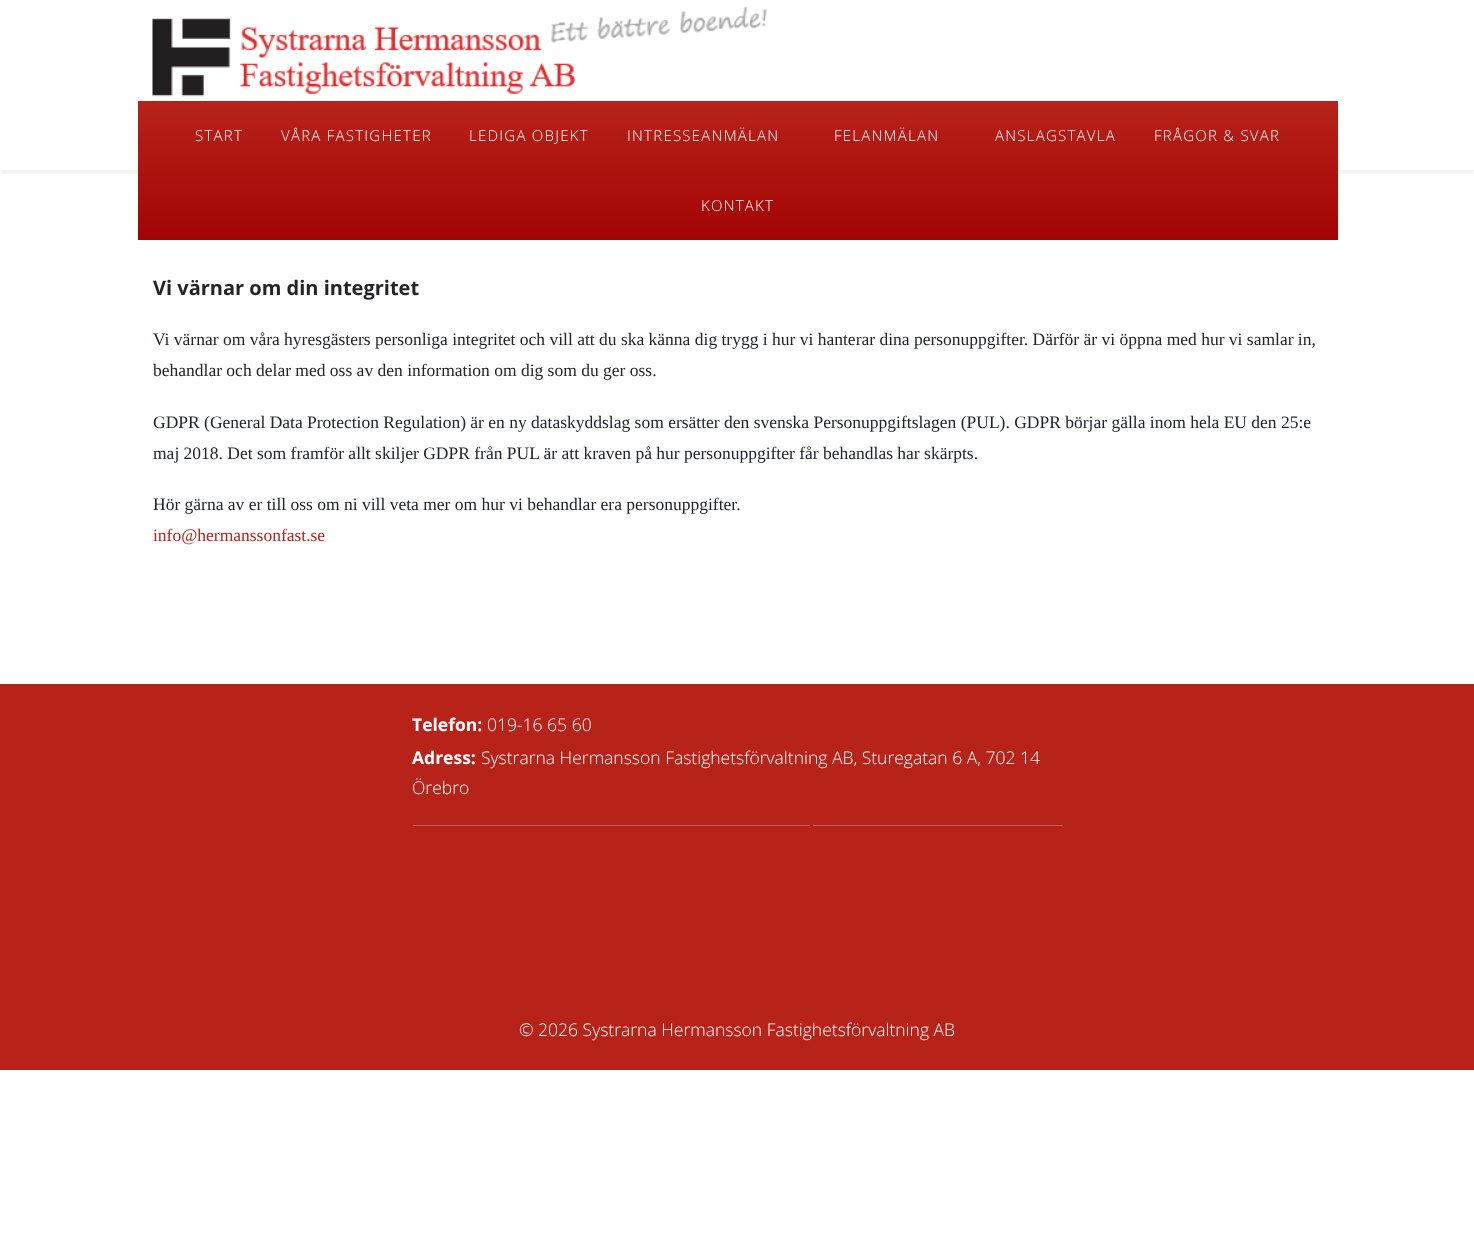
async function draw(canvas) {
  canvas.width = 1474
  canvas.height = 1247
  const ctx = canvas.getContext('2d')
  ctx.miterLimit = 4
  ctx.fontKerning = 'normal'
  async function loadImage(src) {
    const img = new Image()
    img.src = src
    await img.decode()
    return img
  }
  let gradient

  ctx.fillStyle = '#fff'
  ctx.fillRect(0, 0, 1474, 1247)
  ctx.drawImage(await loadImage('image0.png'), 152, 6, 616, 91)
  ctx.save()
  ctx.beginPath()
  ctx.rect(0, 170, 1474, 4)
  ctx.clip()
  ctx.fillStyle = '#0000000d'
  ctx.filter = 'blur(2px)'
  ctx.beginPath()
  ctx.rect(0, 105, 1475, 69)
  ctx.fill()
  ctx.filter = 'none'
  ctx.restore()
  gradient = ctx.createLinearGradient(738, 101, 738, 240)
  gradient.addColorStop(0.01, '#b72319')
  gradient.addColorStop(1, '#a30403')
  ctx.fillStyle = gradient
  ctx.fillRect(138, 101, 1200, 139)
  ctx.letterSpacing = '1.25px'
  ctx.font = '300 15px Open Sans'
  ctx.fillStyle = '#fff'
  ctx.fillText('START', 195, 141)
  ctx.fillText('VÅRA FASTIGHETER', 281, 141)
  ctx.fillText('LEDIGA OBJEKT', 469, 141)
  ctx.fillText('INTRESSEANMÄLAN', 627, 141)
  ctx.fillText('FELANMÄLAN', 834, 141)
  ctx.fillText('ANSLAGSTAVLA', 995, 141)
  ctx.fillText('FRÅGOR & SVAR', 1154, 141)
  ctx.fillText('KONTAKT', 701, 211)
  ctx.letterSpacing = '0px'
  ctx.font = 'bold 20px Open Sans'
  ctx.fillStyle = '#212529'
  ctx.fillText('Vi värnar om din integritet', 153, 295)
  ctx.font = '17.5px Liberation Serif'
  ctx.fillText('Vi värnar om våra hyresgästers personliga integritet och vill att du ska känna dig trygg i hur vi hanterar dina personuppgifter. Därför är vi öppna med hur vi samlar in,', 153, 345)
  ctx.fillText('behandlar och delar med oss av den information om dig som du ger oss.', 153, 376)
  ctx.fillText('GDPR (General Data Protection Regulation) är en ny dataskyddslag som ersätter den svenska Personuppgiftslagen (PUL). GDPR börjar gälla inom hela EU den 25:e', 153, 428)
  ctx.fillText('maj 2018. Det som framför allt skiljer GDPR från PUL är att kraven på hur personuppgifter får behandlas har skärpts.', 153, 459)
  ctx.fillText('Hör gärna av er till oss om ni vill veta mer om hur vi behandlar era personuppgifter.', 153, 510)
  ctx.fillStyle = '#b72319'
  ctx.fillText('info@hermanssonfast.se', 153, 541)
  ctx.fillRect(0, 684, 1474, 386)
  ctx.font = 'bold 17.5px Open Sans'
  ctx.fillStyle = '#fff'
  ctx.fillText('Telefon:', 412, 731)
  ctx.font = '300 17.5px Open Sans'
  ctx.fillText('019-16 65 60', 487, 731)
  ctx.font = 'bold 17.5px Open Sans'
  ctx.fillText('Adress:', 412, 764)
  ctx.font = '300 17.5px Open Sans'
  ctx.fillText('Systrarna Hermansson Fastighetsförvaltning AB, Sturegatan 6 A, 702 14', 481, 764)
  ctx.fillText('Örebro', 412, 794)
  ctx.fillStyle = '#c95a53'
  ctx.fillRect(413, 825, 397, 1)
  ctx.fillRect(813, 825, 250, 1)
  ctx.fillStyle = '#fff'
  ctx.fillText('© 2026 Systrarna Hermansson Fastighetsförvaltning AB', 519, 1036)
}

draw(document.querySelector('canvas'))
